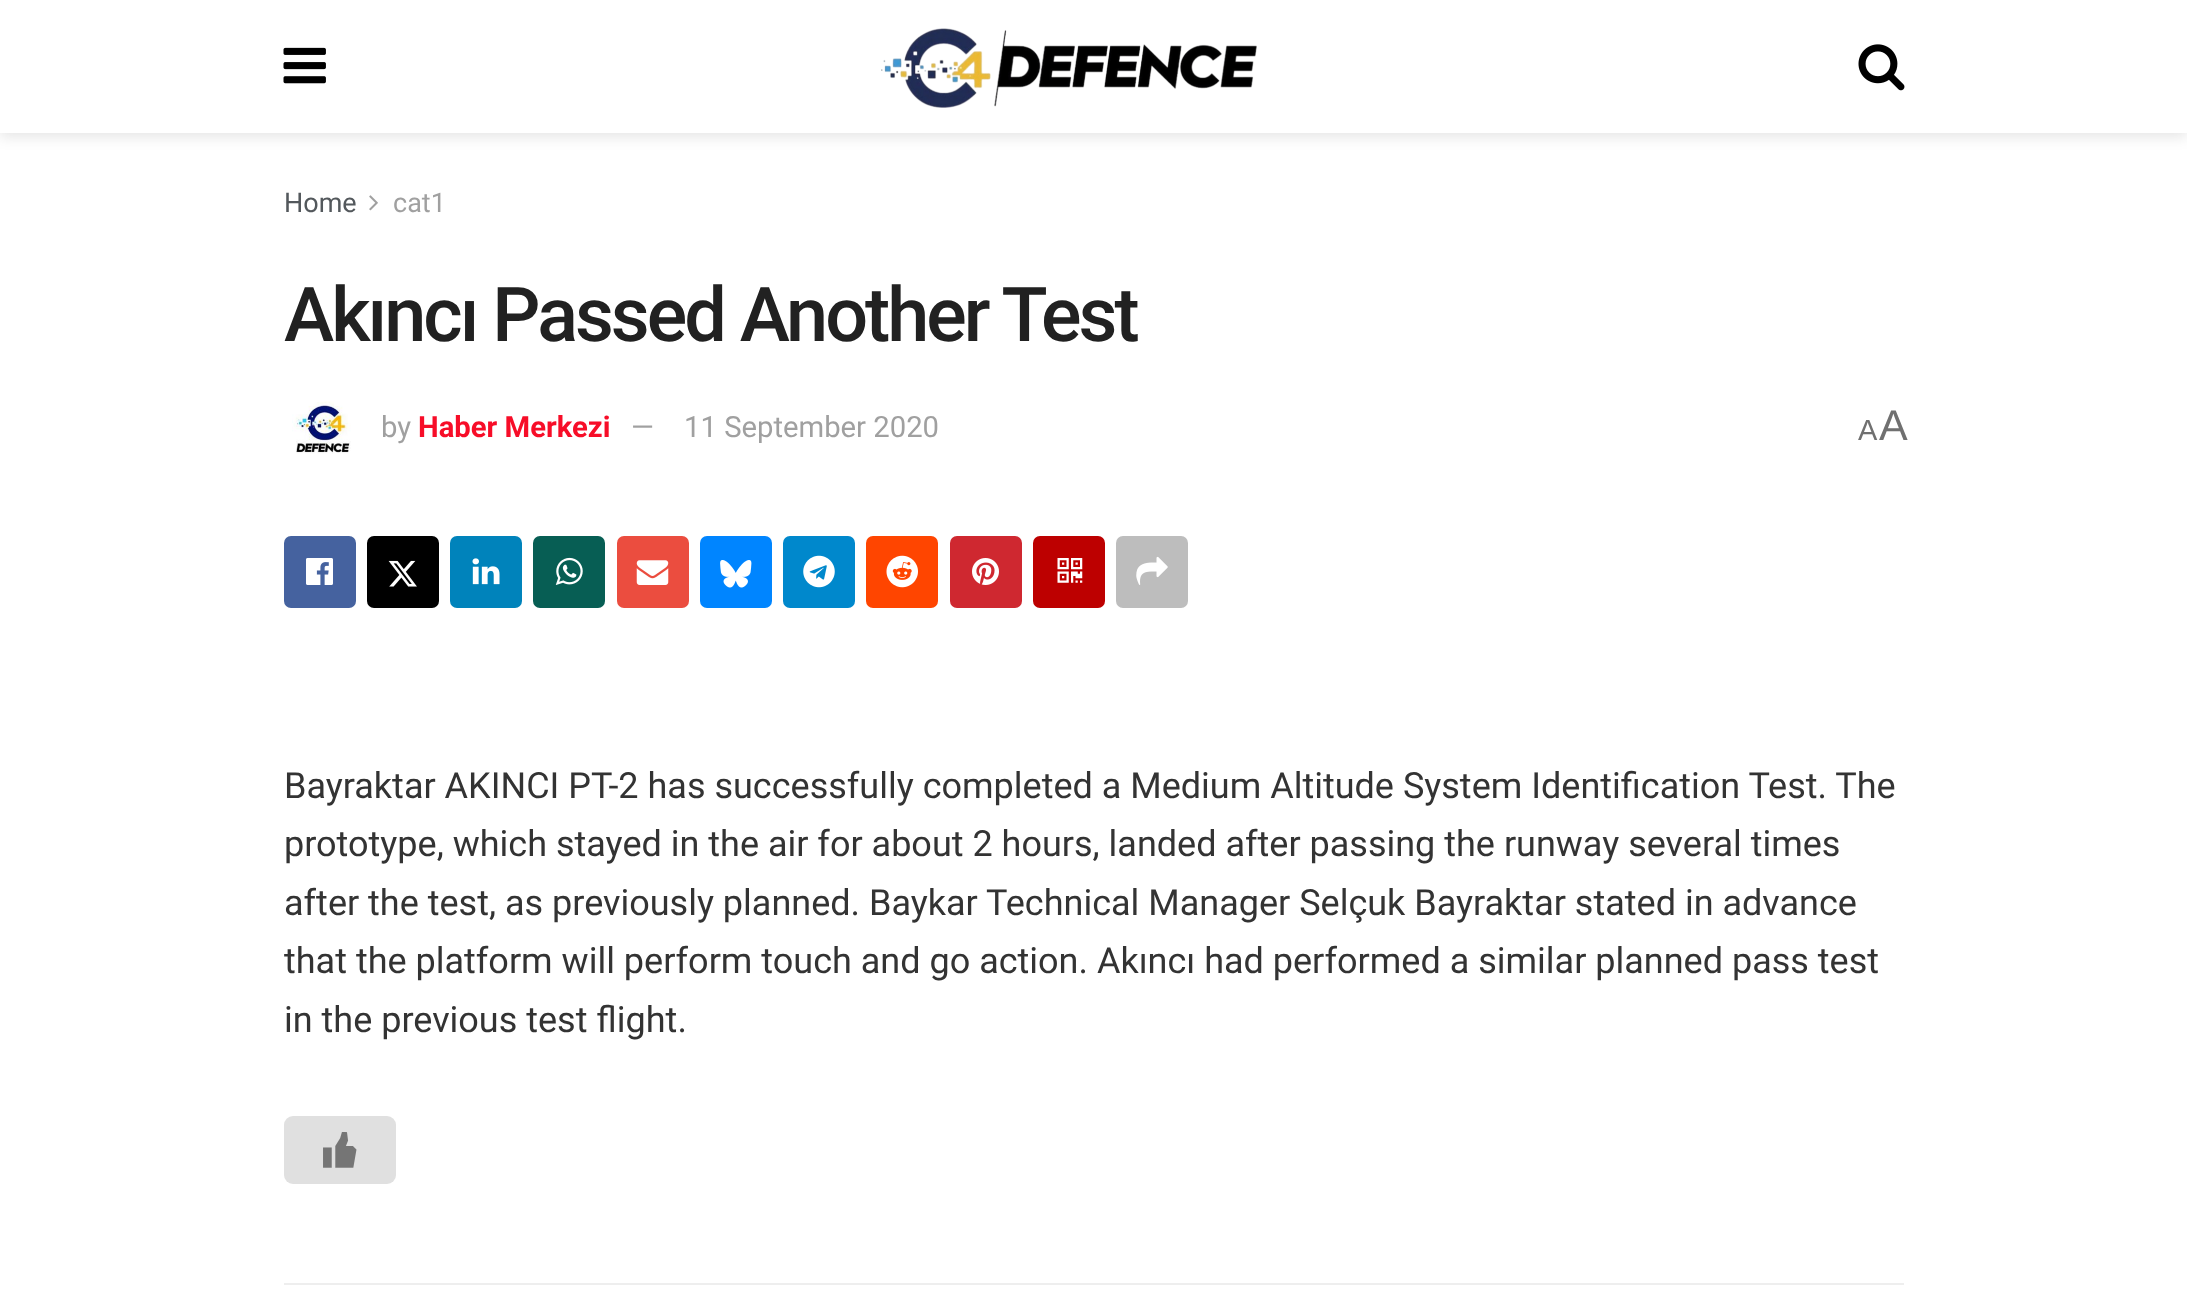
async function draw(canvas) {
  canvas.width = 2187
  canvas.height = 1290
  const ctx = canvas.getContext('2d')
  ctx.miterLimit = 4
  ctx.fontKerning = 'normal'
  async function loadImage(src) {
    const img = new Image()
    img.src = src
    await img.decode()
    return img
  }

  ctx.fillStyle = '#fff'
  ctx.fillRect(0, 0, 2187, 1290)
  ctx.fillStyle = '#0000001a'
  ctx.filter = 'blur(7px)'
  ctx.beginPath()
  ctx.rect(0, 5, 2187, 132)
  ctx.fill()
  ctx.filter = 'none'
  ctx.fillStyle = '#fff'
  ctx.fillRect(0, 0, 2187, 133)
  ctx.drawImage(await loadImage('image0.png'), 283, 47, 43, 37)
  ctx.drawImage(await loadImage('image1.png'), 881, 28, 376, 80)
  ctx.drawImage(await loadImage('image2.png'), 1858, 44, 47, 47)
  ctx.font = '27px Roboto'
  ctx.fillStyle = '#53585c'
  ctx.fillText('Home', 284, 212)
  ctx.drawImage(await loadImage('image3.png'), 369, 195, 9, 16)
  ctx.fillStyle = '#a0a0a0'
  ctx.fillText('cat1', 393, 212)
  ctx.letterSpacing = '-3px'
  ctx.font = '500 75.6px Roboto'
  ctx.fillStyle = '#212121'
  ctx.fillText('Akıncı Passed Another Test', 284, 341)
  ctx.drawImage(await loadImage('image4.png'), 292, 401, 59, 53)
  ctx.letterSpacing = '0px'
  ctx.font = '29.25px Roboto'
  ctx.fillStyle = '#a0a0a0'
  ctx.fillText('by', 381, 437)
  ctx.font = 'bold 29.25px Roboto'
  ctx.fillStyle = '#f70d28'
  ctx.fillText('Haber Merkezi', 418, 437)
  ctx.font = '29.25px Roboto'
  ctx.fillStyle = '#a0a0a0'
  ctx.fillText('—', 631, 437)
  ctx.fillText('11 September 2020', 684, 437)
  ctx.font = '29px Liberation Sans'
  ctx.fillStyle = '#707070'
  ctx.fillText('A', 1858, 440)
  ctx.font = '43px Liberation Sans'
  ctx.fillText('A', 1879, 440)
  ctx.fillStyle = '#45629f'
  ctx.beginPath()
  ctx.roundRect(284, 536, 72, 72, 7)
  ctx.fill()
  ctx.drawImage(await loadImage('image5.png'), 306, 558, 27, 27)
  ctx.fillStyle = '#000'
  ctx.beginPath()
  ctx.roundRect(367, 536, 72, 72, 7)
  ctx.fill()
  ctx.drawImage(await loadImage('image6.png'), 388, 560, 29, 27)
  ctx.fillStyle = '#0083bb'
  ctx.beginPath()
  ctx.roundRect(450, 536, 72, 72, 7)
  ctx.fill()
  ctx.drawImage(await loadImage('image7.png'), 472, 558, 28, 27)
  ctx.fillStyle = '#075e54'
  ctx.beginPath()
  ctx.roundRect(533, 536, 72, 72, 7)
  ctx.fill()
  ctx.drawImage(await loadImage('image8.png'), 555, 557, 28, 28)
  ctx.fillStyle = '#eb4d3f'
  ctx.beginPath()
  ctx.roundRect(617, 536, 72, 72, 7)
  ctx.fill()
  ctx.drawImage(await loadImage('image9.png'), 636, 560, 33, 25)
  ctx.fillStyle = '#0085ff'
  ctx.beginPath()
  ctx.roundRect(700, 536, 72, 72, 7)
  ctx.fill()
  ctx.drawImage(await loadImage('image10.png'), 720, 560, 32, 28)
  ctx.fillStyle = '#08c'
  ctx.beginPath()
  ctx.roundRect(783, 536, 72, 72, 7)
  ctx.fill()
  ctx.drawImage(await loadImage('image11.png'), 803, 555, 32, 33)
  ctx.fillStyle = '#ff4500'
  ctx.beginPath()
  ctx.roundRect(866, 536, 72, 72, 7)
  ctx.fill()
  ctx.drawImage(await loadImage('image12.png'), 886, 555, 32, 33)
  ctx.fillStyle = '#cf2830'
  ctx.beginPath()
  ctx.roundRect(950, 536, 72, 72, 7)
  ctx.fill()
  ctx.drawImage(await loadImage('image13.png'), 972, 558, 27, 27)
  ctx.fillStyle = '#bd0000'
  ctx.beginPath()
  ctx.roundRect(1033, 536, 72, 72, 7)
  ctx.fill()
  ctx.drawImage(await loadImage('image14.png'), 1057, 558, 26, 25)
  ctx.fillStyle = '#bdbdbd'
  ctx.beginPath()
  ctx.roundRect(1116, 536, 72, 72, 7)
  ctx.fill()
  ctx.drawImage(await loadImage('image15.png'), 1136, 556, 32, 29)
  ctx.font = '36px Roboto'
  ctx.fillStyle = '#333'
  ctx.fillText('Bayraktar AKINCI PT-2 has successfully completed a Medium Altitude System Identification Test. The', 284, 798)
  ctx.fillText('prototype, which stayed in the air for about 2 hours, landed after passing the runway several times', 284, 856)
  ctx.fillText('after the test, as previously planned. Baykar Technical Manager Selçuk Bayraktar stated in advance', 284, 915)
  ctx.fillText('that the platform will perform touch and go action. Akıncı had performed a similar planned pass test', 284, 973)
  ctx.fillText('in the previous test flight.', 284, 1032)
  ctx.fillStyle = '#e0e0e0'
  ctx.beginPath()
  ctx.roundRect(284, 1116, 112, 68, 9)
  ctx.fill()
  ctx.drawImage(await loadImage('image16.png'), 323, 1132, 34, 36)
  ctx.fillStyle = '#eee'
  ctx.fillRect(284, 1283, 1620, 2)
}

draw(document.querySelector('canvas'))
